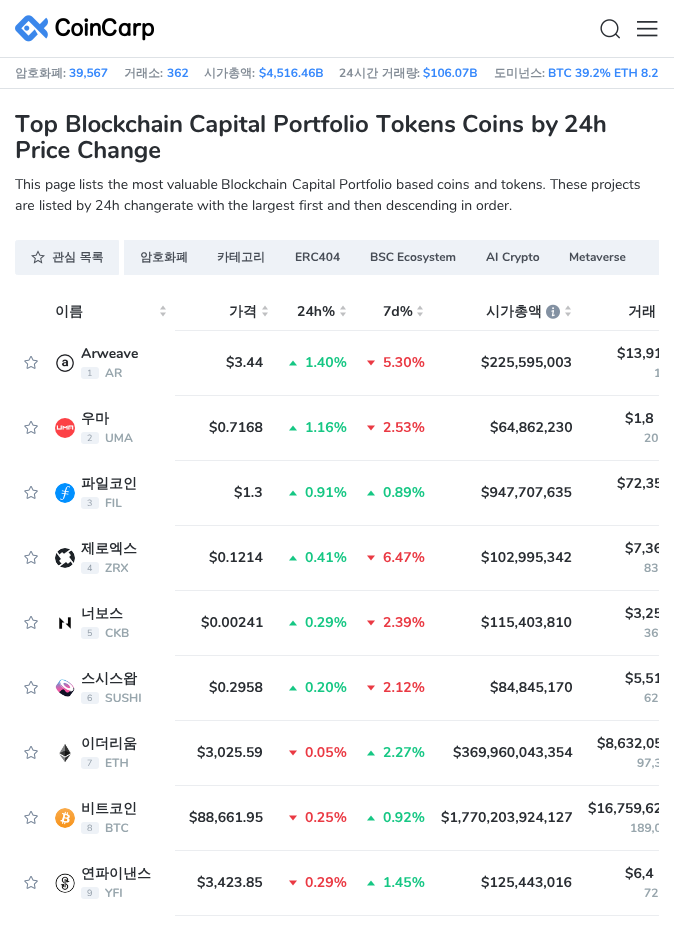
async function draw(canvas) {
  canvas.width = 674
  canvas.height = 929
  const ctx = canvas.getContext('2d')
  ctx.miterLimit = 4
  ctx.fontKerning = 'normal'
  async function loadImage(src) {
    const img = new Image()
    img.src = src
    await img.decode()
    return img
  }

  ctx.fillStyle = '#fff'
  ctx.fillRect(0, 0, 674, 929)
  ctx.fillStyle = '#dee2e6'
  ctx.fillRect(0, 57, 674, 1)
  ctx.drawImage(await loadImage('image0.png'), 15, 15, 139, 27)
  ctx.drawImage(await loadImage('image1.png'), 600, 19, 20, 20)
  ctx.drawImage(await loadImage('image2.png'), 637, 21, 21, 16)
  ctx.fillRect(0, 88, 674, 1)
  ctx.font = 'bold 12px WenQuanYi Zen Hei'
  ctx.fillStyle = '#838c96'
  ctx.fillText('암호화폐', 15, 77)
  ctx.font = 'bold 12px Nunito'
  ctx.fillText(':', 63, 77)
  ctx.fillStyle = '#3688fc'
  ctx.fillText('39,567', 69, 77)
  ctx.font = 'bold 12px WenQuanYi Zen Hei'
  ctx.fillStyle = '#838c96'
  ctx.fillText('거래소', 124, 77)
  ctx.font = 'bold 12px Nunito'
  ctx.fillText(':', 160, 77)
  ctx.fillStyle = '#3688fc'
  ctx.fillText('362', 167, 77)
  ctx.font = 'bold 12px WenQuanYi Zen Hei'
  ctx.fillStyle = '#838c96'
  ctx.fillText('시가총액', 204, 77)
  ctx.font = 'bold 12px Nunito'
  ctx.fillText(':', 252, 77)
  ctx.fillStyle = '#3688fc'
  ctx.fillText('$4,516.46B', 259, 77)
  ctx.fillStyle = '#838c96'
  ctx.fillText('24', 339, 77)
  ctx.font = 'bold 12px WenQuanYi Zen Hei'
  ctx.fillText('시간 거래량', 354, 77)
  ctx.font = 'bold 12px Nunito'
  ctx.fillText(':', 417, 77)
  ctx.fillStyle = '#3688fc'
  ctx.fillText('$106.07B', 423, 77)
  ctx.font = 'bold 12px WenQuanYi Zen Hei'
  ctx.fillStyle = '#838c96'
  ctx.fillText('도미넌스', 494, 77)
  ctx.font = 'bold 12px Nunito'
  ctx.fillText(':', 542, 77)
  ctx.fillStyle = '#3688fc'
  ctx.fillText('BTC', 548, 77)
  ctx.fillText('39.2%', 575, 77)
  ctx.fillText('ETH', 614, 77)
  ctx.fillText('8.2', 641, 77)
  ctx.font = 'bold 24px Nunito'
  ctx.fillStyle = '#292d32'
  ctx.fillText('Top', 15, 132)
  ctx.fillText('Blockchain', 65, 132)
  ctx.fillText('Capital', 189, 132)
  ctx.fillText('Portfolio', 273, 132)
  ctx.fillText('Tokens', 376, 132)
  ctx.fillText('Coins', 462, 132)
  ctx.fillText('by', 531, 132)
  ctx.fillText('24h', 564, 132)
  ctx.fillText('Price', 15, 158)
  ctx.fillText('Change', 77, 158)
  ctx.font = '14px Nunito'
  ctx.fillText('This', 15, 189)
  ctx.fillText('page', 45, 189)
  ctx.fillText('lists', 79, 189)
  ctx.fillText('the', 108, 189)
  ctx.fillText('most', 132, 189)
  ctx.fillText('valuable', 167, 189)
  ctx.fillText('Blockchain', 221, 189)
  ctx.fillText('Capital', 292, 189)
  ctx.fillText('Portfolio', 339, 189)
  ctx.fillText('based', 396, 189)
  ctx.fillText('coins', 437, 189)
  ctx.fillText('and', 474, 189)
  ctx.fillText('tokens.', 501, 189)
  ctx.fillText('These', 550, 189)
  ctx.fillText('projects', 591, 189)
  ctx.fillText('are', 15, 210)
  ctx.fillText('listed', 39, 210)
  ctx.fillText('by', 76, 210)
  ctx.fillText('24h', 95, 210)
  ctx.fillText('changerate', 124, 210)
  ctx.fillText('with', 197, 210)
  ctx.fillText('the', 228, 210)
  ctx.fillText('largest', 252, 210)
  ctx.fillText('first', 299, 210)
  ctx.fillText('and', 327, 210)
  ctx.fillText('then', 354, 210)
  ctx.fillText('descending', 386, 210)
  ctx.fillText('in', 461, 210)
  ctx.fillText('order.', 476, 210)
  ctx.fillStyle = '#eef2f7'
  ctx.beginPath()
  ctx.roundRect(15.5, 240.5, 103, 34, [2, 0, 0, 2])
  ctx.fill()
  ctx.strokeStyle = '#eef2f7'
  ctx.stroke()
  ctx.drawImage(await loadImage('image3.png'), 31, 250, 14, 14)
  ctx.font = 'bold 12px WenQuanYi Zen Hei'
  ctx.fillStyle = '#474d56'
  ctx.fillText('관심 목록', 52, 261)
  ctx.fillStyle = '#eef2f7'
  ctx.fillRect(124, 240, 535, 35)
  ctx.fillStyle = '#474d56'
  ctx.fillText('암호화폐', 140, 261)
  ctx.fillText('카테고리', 217, 261)
  ctx.font = 'bold 12px Nunito'
  ctx.fillText('ERC404', 295, 261)
  ctx.fillText('BSC', 370, 261)
  ctx.fillText('Ecosystem', 397, 261)
  ctx.fillText('AI', 486, 261)
  ctx.fillText('Crypto', 502, 261)
  ctx.fillText('Metaverse', 569, 261)
  ctx.font = 'bold 14px WenQuanYi Zen Hei'
  ctx.fillStyle = '#292d32'
  ctx.fillText('이름', 55, 316)
  ctx.fillStyle = '#bfc0c2'
  ctx.beginPath()
  ctx.moveTo(163, 305.5)
  ctx.lineTo(166, 309.5)
  ctx.lineTo(160, 309.5)
  ctx.closePath()
  ctx.moveTo(163, 316.5)
  ctx.lineTo(160, 312.5)
  ctx.lineTo(166, 312.5)
  ctx.closePath()
  ctx.fill()
  ctx.fillStyle = '#292d32'
  ctx.fillText('가격', 229, 316)
  ctx.fillStyle = '#bfc0c2'
  ctx.beginPath()
  ctx.moveTo(265, 305.5)
  ctx.lineTo(268, 309.5)
  ctx.lineTo(262, 309.5)
  ctx.closePath()
  ctx.moveTo(265, 316.5)
  ctx.lineTo(262, 312.5)
  ctx.lineTo(268, 312.5)
  ctx.closePath()
  ctx.fill()
  ctx.font = 'bold 14px Nunito'
  ctx.fillStyle = '#292d32'
  ctx.fillText('24h%', 297, 316)
  ctx.fillStyle = '#bfc0c2'
  ctx.beginPath()
  ctx.moveTo(343, 305.5)
  ctx.lineTo(346, 309.5)
  ctx.lineTo(340, 309.5)
  ctx.closePath()
  ctx.moveTo(343, 316.5)
  ctx.lineTo(340, 312.5)
  ctx.lineTo(346, 312.5)
  ctx.closePath()
  ctx.fill()
  ctx.fillStyle = '#292d32'
  ctx.fillText('7d%', 383, 316)
  ctx.fillStyle = '#bfc0c2'
  ctx.beginPath()
  ctx.moveTo(420, 305.5)
  ctx.lineTo(423, 309.5)
  ctx.lineTo(417, 309.5)
  ctx.closePath()
  ctx.moveTo(420, 316.5)
  ctx.lineTo(417, 312.5)
  ctx.lineTo(423, 312.5)
  ctx.closePath()
  ctx.fill()
  ctx.font = 'bold 14px WenQuanYi Zen Hei'
  ctx.fillStyle = '#292d32'
  ctx.fillText('시가총액', 486, 316)
  ctx.drawImage(await loadImage('image4.png'), 546, 304, 14, 15)
  ctx.fillStyle = '#bfc0c2'
  ctx.beginPath()
  ctx.moveTo(568, 305.5)
  ctx.lineTo(571, 309.5)
  ctx.lineTo(565, 309.5)
  ctx.closePath()
  ctx.moveTo(568, 316.5)
  ctx.lineTo(565, 312.5)
  ctx.lineTo(571, 312.5)
  ctx.closePath()
  ctx.fill()
  ctx.fillStyle = '#292d32'
  ctx.fillText('거래', 628, 316)
  ctx.fillStyle = '#ebedf0'
  ctx.fillRect(175, 330, 484, 1)
  ctx.drawImage(await loadImage('image5.png'), 24, 356, 14, 13)
  ctx.drawImage(await loadImage('image6.png'), 56, 354, 18, 18)
  ctx.font = 'bold 14px Nunito'
  ctx.fillStyle = '#292d32'
  ctx.fillText('Arweave', 81, 358)
  ctx.fillStyle = '#eef2f7'
  ctx.beginPath()
  ctx.roundRect(81, 367, 18, 12, 3)
  ctx.fill()
  ctx.font = '9px Nunito'
  ctx.fillStyle = '#919ca7'
  ctx.fillText('1', 87, 376)
  ctx.font = 'bold 12px Nunito'
  ctx.fillStyle = '#98a6ad'
  ctx.fillText('AR', 105, 377)
  ctx.font = 'bold 14px Nunito'
  ctx.fillStyle = '#292d32'
  ctx.fillText('$3.44', 226, 367)
  ctx.fillStyle = '#16c784'
  ctx.beginPath()
  ctx.moveTo(293, 360.5)
  ctx.lineTo(297, 365.5)
  ctx.lineTo(289, 365.5)
  ctx.closePath()
  ctx.fill()
  ctx.fillText('1.40%', 305, 367)
  ctx.fillStyle = '#ea3943'
  ctx.beginPath()
  ctx.moveTo(371, 365.5)
  ctx.lineTo(367, 360.5)
  ctx.lineTo(375, 360.5)
  ctx.closePath()
  ctx.fill()
  ctx.fillText('5.30%', 383, 367)
  ctx.fillStyle = '#292d32'
  ctx.fillText('$225,595,003', 481, 367)
  ctx.save()
  ctx.beginPath()
  ctx.rect(15, 287, 644, 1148)
  ctx.clip()
  ctx.fillText('$13,91', 617, 358)
  ctx.font = 'bold 12px Nunito'
  ctx.fillStyle = '#98a6ad'
  ctx.fillText('1', 654, 377)
  ctx.restore()
  ctx.fillStyle = '#ebedf0'
  ctx.fillRect(175, 395, 484, 1)
  ctx.drawImage(await loadImage('image5.png'), 24, 421, 14, 13)
  ctx.drawImage(await loadImage('image7.png'), 55, 418, 20, 20)
  ctx.font = 'bold 14px WenQuanYi Zen Hei'
  ctx.fillStyle = '#292d32'
  ctx.fillText('우마', 81, 423)
  ctx.fillStyle = '#eef2f7'
  ctx.beginPath()
  ctx.roundRect(81, 432, 18, 12, 3)
  ctx.fill()
  ctx.font = '9px Nunito'
  ctx.fillStyle = '#919ca7'
  ctx.fillText('2', 87, 441)
  ctx.font = 'bold 12px Nunito'
  ctx.fillStyle = '#98a6ad'
  ctx.fillText('UMA', 105, 442)
  ctx.font = 'bold 14px Nunito'
  ctx.fillStyle = '#292d32'
  ctx.fillText('$0.7168', 209, 432)
  ctx.fillStyle = '#16c784'
  ctx.beginPath()
  ctx.moveTo(293, 425.5)
  ctx.lineTo(297, 430.5)
  ctx.lineTo(289, 430.5)
  ctx.closePath()
  ctx.fill()
  ctx.fillText('1.16%', 305, 432)
  ctx.fillStyle = '#ea3943'
  ctx.beginPath()
  ctx.moveTo(371, 430.5)
  ctx.lineTo(367, 425.5)
  ctx.lineTo(375, 425.5)
  ctx.closePath()
  ctx.fill()
  ctx.fillText('2.53%', 383, 432)
  ctx.fillStyle = '#292d32'
  ctx.fillText('$64,862,230', 490, 432)
  ctx.fillText('$1,8', 625, 423)
  ctx.font = 'bold 12px Nunito'
  ctx.fillStyle = '#98a6ad'
  ctx.fillText('20', 644, 442)
  ctx.fillStyle = '#ebedf0'
  ctx.fillRect(175, 460, 484, 1)
  ctx.drawImage(await loadImage('image5.png'), 24, 486, 14, 13)
  ctx.drawImage(await loadImage('image8.png'), 55, 483, 20, 20)
  ctx.font = 'bold 14px WenQuanYi Zen Hei'
  ctx.fillStyle = '#292d32'
  ctx.fillText('파일코인', 81, 488)
  ctx.fillStyle = '#eef2f7'
  ctx.beginPath()
  ctx.roundRect(81, 497, 18, 12, 3)
  ctx.fill()
  ctx.font = '9px Nunito'
  ctx.fillStyle = '#919ca7'
  ctx.fillText('3', 87, 506)
  ctx.font = 'bold 12px Nunito'
  ctx.fillStyle = '#98a6ad'
  ctx.fillText('FIL', 105, 507)
  ctx.font = 'bold 14px Nunito'
  ctx.fillStyle = '#292d32'
  ctx.fillText('$1.3', 234, 497)
  ctx.fillStyle = '#16c784'
  ctx.beginPath()
  ctx.moveTo(293, 490.5)
  ctx.lineTo(297, 495.5)
  ctx.lineTo(289, 495.5)
  ctx.closePath()
  ctx.fill()
  ctx.fillText('0.91%', 305, 497)
  ctx.beginPath()
  ctx.moveTo(371, 490.5)
  ctx.lineTo(375, 495.5)
  ctx.lineTo(367, 495.5)
  ctx.closePath()
  ctx.fill()
  ctx.fillText('0.89%', 383, 497)
  ctx.fillStyle = '#292d32'
  ctx.fillText('$947,707,635', 481, 497)
  ctx.save()
  ctx.beginPath()
  ctx.rect(15, 287, 644, 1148)
  ctx.clip()
  ctx.fillText('$72,35', 617, 488)
  ctx.restore()
  ctx.fillStyle = '#ebedf0'
  ctx.fillRect(175, 525, 484, 1)
  ctx.drawImage(await loadImage('image5.png'), 24, 551, 14, 13)
  ctx.drawImage(await loadImage('image9.png'), 55, 548, 20, 20)
  ctx.font = 'bold 14px WenQuanYi Zen Hei'
  ctx.fillStyle = '#292d32'
  ctx.fillText('제로엑스', 81, 553)
  ctx.fillStyle = '#eef2f7'
  ctx.beginPath()
  ctx.roundRect(81, 562, 18, 12, 3)
  ctx.fill()
  ctx.font = '9px Nunito'
  ctx.fillStyle = '#919ca7'
  ctx.fillText('4', 87, 571)
  ctx.font = 'bold 12px Nunito'
  ctx.fillStyle = '#98a6ad'
  ctx.fillText('ZRX', 105, 572)
  ctx.font = 'bold 14px Nunito'
  ctx.fillStyle = '#292d32'
  ctx.fillText('$0.1214', 209, 562)
  ctx.fillStyle = '#16c784'
  ctx.beginPath()
  ctx.moveTo(293, 555.5)
  ctx.lineTo(297, 560.5)
  ctx.lineTo(289, 560.5)
  ctx.closePath()
  ctx.fill()
  ctx.fillText('0.41%', 305, 562)
  ctx.fillStyle = '#ea3943'
  ctx.beginPath()
  ctx.moveTo(371, 560.5)
  ctx.lineTo(367, 555.5)
  ctx.lineTo(375, 555.5)
  ctx.closePath()
  ctx.fill()
  ctx.fillText('6.47%', 383, 562)
  ctx.fillStyle = '#292d32'
  ctx.fillText('$102,995,342', 481, 562)
  ctx.save()
  ctx.beginPath()
  ctx.rect(15, 287, 644, 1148)
  ctx.clip()
  ctx.fillText('$7,36', 625, 553)
  ctx.restore()
  ctx.font = 'bold 12px Nunito'
  ctx.fillStyle = '#98a6ad'
  ctx.fillText('83', 644, 572)
  ctx.fillStyle = '#ebedf0'
  ctx.fillRect(175, 590, 484, 1)
  ctx.drawImage(await loadImage('image5.png'), 24, 616, 14, 13)
  ctx.drawImage(await loadImage('image10.png'), 59, 617, 12, 12)
  ctx.font = 'bold 14px WenQuanYi Zen Hei'
  ctx.fillStyle = '#292d32'
  ctx.fillText('너보스', 81, 618)
  ctx.fillStyle = '#eef2f7'
  ctx.beginPath()
  ctx.roundRect(81, 627, 18, 12, 3)
  ctx.fill()
  ctx.font = '9px Nunito'
  ctx.fillStyle = '#919ca7'
  ctx.fillText('5', 87, 636)
  ctx.font = 'bold 12px Nunito'
  ctx.fillStyle = '#98a6ad'
  ctx.fillText('CKB', 105, 637)
  ctx.font = 'bold 14px Nunito'
  ctx.fillStyle = '#292d32'
  ctx.fillText('$0.00241', 201, 627)
  ctx.fillStyle = '#16c784'
  ctx.beginPath()
  ctx.moveTo(293, 620.5)
  ctx.lineTo(297, 625.5)
  ctx.lineTo(289, 625.5)
  ctx.closePath()
  ctx.fill()
  ctx.fillText('0.29%', 305, 627)
  ctx.fillStyle = '#ea3943'
  ctx.beginPath()
  ctx.moveTo(371, 625.5)
  ctx.lineTo(367, 620.5)
  ctx.lineTo(375, 620.5)
  ctx.closePath()
  ctx.fill()
  ctx.fillText('2.39%', 383, 627)
  ctx.fillStyle = '#292d32'
  ctx.fillText('$115,403,810', 481, 627)
  ctx.save()
  ctx.beginPath()
  ctx.rect(15, 287, 644, 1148)
  ctx.clip()
  ctx.fillText('$3,25', 625, 618)
  ctx.restore()
  ctx.font = 'bold 12px Nunito'
  ctx.fillStyle = '#98a6ad'
  ctx.fillText('36', 644, 637)
  ctx.fillStyle = '#ebedf0'
  ctx.fillRect(175, 655, 484, 1)
  ctx.drawImage(await loadImage('image5.png'), 24, 681, 14, 13)
  ctx.drawImage(await loadImage('image11.png'), 55, 679, 20, 18)
  ctx.font = 'bold 14px WenQuanYi Zen Hei'
  ctx.fillStyle = '#292d32'
  ctx.fillText('스시스왑', 81, 683)
  ctx.fillStyle = '#eef2f7'
  ctx.beginPath()
  ctx.roundRect(81, 692, 18, 12, 3)
  ctx.fill()
  ctx.font = '9px Nunito'
  ctx.fillStyle = '#919ca7'
  ctx.fillText('6', 87, 701)
  ctx.font = 'bold 12px Nunito'
  ctx.fillStyle = '#98a6ad'
  ctx.fillText('SUSHI', 105, 702)
  ctx.font = 'bold 14px Nunito'
  ctx.fillStyle = '#292d32'
  ctx.fillText('$0.2958', 209, 692)
  ctx.fillStyle = '#16c784'
  ctx.beginPath()
  ctx.moveTo(293, 685.5)
  ctx.lineTo(297, 690.5)
  ctx.lineTo(289, 690.5)
  ctx.closePath()
  ctx.fill()
  ctx.fillText('0.20%', 305, 692)
  ctx.fillStyle = '#ea3943'
  ctx.beginPath()
  ctx.moveTo(371, 690.5)
  ctx.lineTo(367, 685.5)
  ctx.lineTo(375, 685.5)
  ctx.closePath()
  ctx.fill()
  ctx.fillText('2.12%', 383, 692)
  ctx.fillStyle = '#292d32'
  ctx.fillText('$84,845,170', 490, 692)
  ctx.save()
  ctx.beginPath()
  ctx.rect(15, 287, 644, 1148)
  ctx.clip()
  ctx.fillText('$5,51', 625, 683)
  ctx.restore()
  ctx.font = 'bold 12px Nunito'
  ctx.fillStyle = '#98a6ad'
  ctx.fillText('62', 644, 702)
  ctx.fillStyle = '#ebedf0'
  ctx.fillRect(175, 720, 484, 1)
  ctx.drawImage(await loadImage('image5.png'), 24, 746, 14, 13)
  ctx.drawImage(await loadImage('image12.png'), 59, 744, 12, 18)
  ctx.font = 'bold 14px WenQuanYi Zen Hei'
  ctx.fillStyle = '#292d32'
  ctx.fillText('이더리움', 81, 748)
  ctx.fillStyle = '#eef2f7'
  ctx.beginPath()
  ctx.roundRect(81, 757, 18, 12, 3)
  ctx.fill()
  ctx.font = '9px Nunito'
  ctx.fillStyle = '#919ca7'
  ctx.fillText('7', 87, 766)
  ctx.font = 'bold 12px Nunito'
  ctx.fillStyle = '#98a6ad'
  ctx.fillText('ETH', 105, 767)
  ctx.font = 'bold 14px Nunito'
  ctx.fillStyle = '#292d32'
  ctx.fillText('$3,025.59', 197, 757)
  ctx.fillStyle = '#ea3943'
  ctx.beginPath()
  ctx.moveTo(293, 755.5)
  ctx.lineTo(289, 750.5)
  ctx.lineTo(297, 750.5)
  ctx.closePath()
  ctx.fill()
  ctx.fillText('0.05%', 305, 757)
  ctx.fillStyle = '#16c784'
  ctx.beginPath()
  ctx.moveTo(371, 750.5)
  ctx.lineTo(375, 755.5)
  ctx.lineTo(367, 755.5)
  ctx.closePath()
  ctx.fill()
  ctx.fillText('2.27%', 383, 757)
  ctx.fillStyle = '#292d32'
  ctx.fillText('$369,960,043,354', 453, 757)
  ctx.save()
  ctx.beginPath()
  ctx.rect(15, 287, 644, 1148)
  ctx.clip()
  ctx.fillText('$8,632,05', 597, 748)
  ctx.font = 'bold 12px Nunito'
  ctx.fillStyle = '#98a6ad'
  ctx.fillText('97,3', 637, 767)
  ctx.restore()
  ctx.fillStyle = '#ebedf0'
  ctx.fillRect(175, 785, 484, 1)
  ctx.drawImage(await loadImage('image5.png'), 24, 811, 14, 13)
  ctx.drawImage(await loadImage('image13.png'), 55, 808, 20, 20)
  ctx.font = 'bold 14px WenQuanYi Zen Hei'
  ctx.fillStyle = '#292d32'
  ctx.fillText('비트코인', 81, 813)
  ctx.fillStyle = '#eef2f7'
  ctx.beginPath()
  ctx.roundRect(81, 822, 18, 12, 3)
  ctx.fill()
  ctx.font = '9px Nunito'
  ctx.fillStyle = '#919ca7'
  ctx.fillText('8', 87, 831)
  ctx.font = 'bold 12px Nunito'
  ctx.fillStyle = '#98a6ad'
  ctx.fillText('BTC', 105, 832)
  ctx.font = 'bold 14px Nunito'
  ctx.fillStyle = '#292d32'
  ctx.fillText('$88,661.95', 189, 822)
  ctx.fillStyle = '#ea3943'
  ctx.beginPath()
  ctx.moveTo(293, 820.5)
  ctx.lineTo(289, 815.5)
  ctx.lineTo(297, 815.5)
  ctx.closePath()
  ctx.fill()
  ctx.fillText('0.25%', 305, 822)
  ctx.fillStyle = '#16c784'
  ctx.beginPath()
  ctx.moveTo(371, 815.5)
  ctx.lineTo(375, 820.5)
  ctx.lineTo(367, 820.5)
  ctx.closePath()
  ctx.fill()
  ctx.fillText('0.92%', 383, 822)
  ctx.fillStyle = '#292d32'
  ctx.fillText('$1,770,203,924,127', 441, 822)
  ctx.save()
  ctx.beginPath()
  ctx.rect(15, 287, 644, 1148)
  ctx.clip()
  ctx.fillText('$16,759,62', 588, 813)
  ctx.font = 'bold 12px Nunito'
  ctx.fillStyle = '#98a6ad'
  ctx.fillText('189,0', 630, 832)
  ctx.restore()
  ctx.fillStyle = '#ebedf0'
  ctx.fillRect(175, 850, 484, 1)
  ctx.drawImage(await loadImage('image5.png'), 24, 876, 14, 13)
  ctx.drawImage(await loadImage('image14.png'), 55, 873, 20, 20)
  ctx.font = 'bold 14px WenQuanYi Zen Hei'
  ctx.fillStyle = '#292d32'
  ctx.fillText('연파이낸스', 81, 878)
  ctx.fillStyle = '#eef2f7'
  ctx.beginPath()
  ctx.roundRect(81, 887, 18, 12, 3)
  ctx.fill()
  ctx.font = '9px Nunito'
  ctx.fillStyle = '#919ca7'
  ctx.fillText('9', 87, 896)
  ctx.font = 'bold 12px Nunito'
  ctx.fillStyle = '#98a6ad'
  ctx.fillText('YFI', 105, 897)
  ctx.font = 'bold 14px Nunito'
  ctx.fillStyle = '#292d32'
  ctx.fillText('$3,423.85', 197, 887)
  ctx.fillStyle = '#ea3943'
  ctx.beginPath()
  ctx.moveTo(293, 885.5)
  ctx.lineTo(289, 880.5)
  ctx.lineTo(297, 880.5)
  ctx.closePath()
  ctx.fill()
  ctx.fillText('0.29%', 305, 887)
  ctx.fillStyle = '#16c784'
  ctx.beginPath()
  ctx.moveTo(371, 880.5)
  ctx.lineTo(375, 885.5)
  ctx.lineTo(367, 885.5)
  ctx.closePath()
  ctx.fill()
  ctx.fillText('1.45%', 383, 887)
  ctx.fillStyle = '#292d32'
  ctx.fillText('$125,443,016', 481, 887)
  ctx.fillText('$6,4', 625, 878)
  ctx.font = 'bold 12px Nunito'
  ctx.fillStyle = '#98a6ad'
  ctx.fillText('72', 644, 897)
  ctx.fillStyle = '#ebedf0'
  ctx.fillRect(175, 915, 484, 1)
}

draw(document.querySelector('canvas'))
